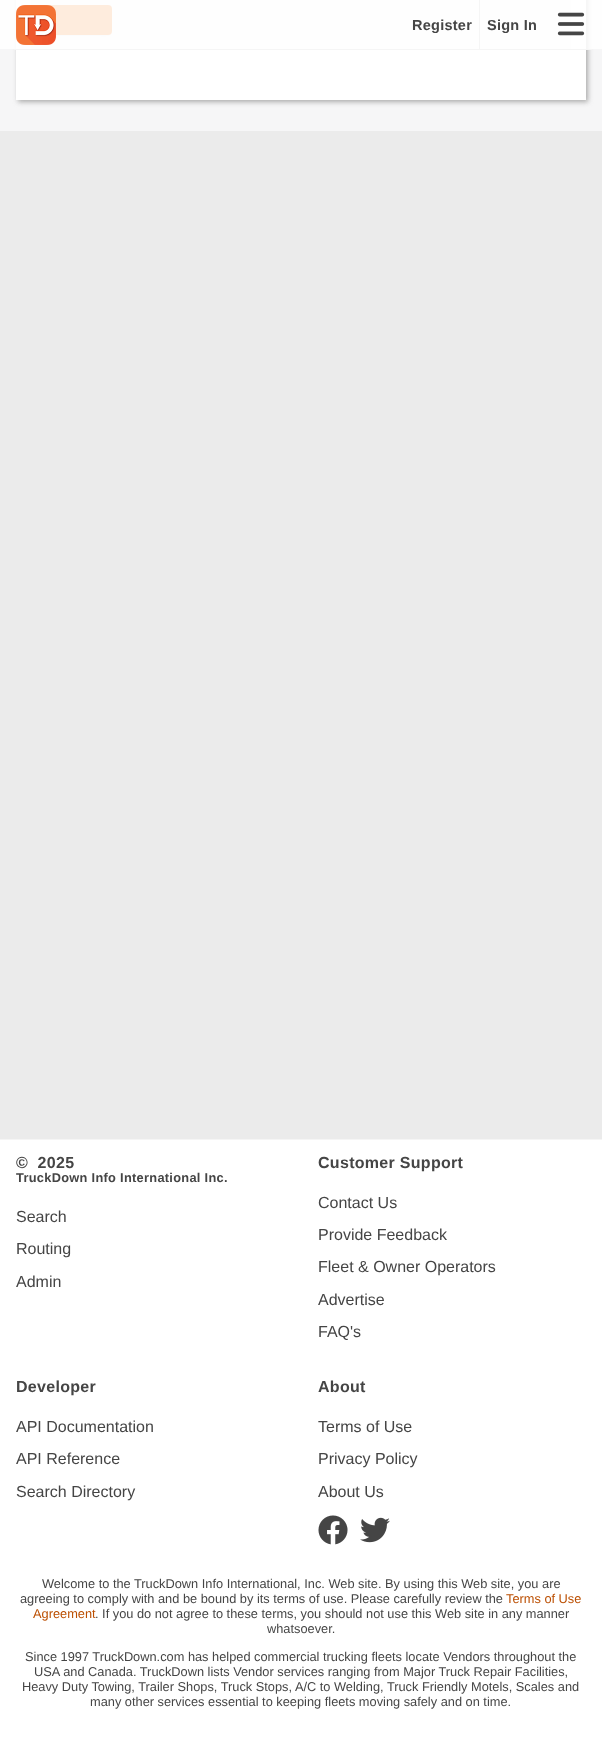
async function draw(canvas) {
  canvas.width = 602
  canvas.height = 1737
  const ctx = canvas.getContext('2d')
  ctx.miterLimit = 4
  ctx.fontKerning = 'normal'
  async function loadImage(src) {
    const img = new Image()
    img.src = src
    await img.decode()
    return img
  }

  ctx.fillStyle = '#ebebeb'
  ctx.fillRect(0, 0, 602, 1737)
  ctx.fillStyle = '#f6f6f7'
  ctx.fillRect(0, 0, 602, 131)
  ctx.fillStyle = '#ababab'
  ctx.filter = 'blur(2.5px)'
  ctx.beginPath()
  ctx.rect(18, -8, 570, 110)
  ctx.fill()
  ctx.filter = 'none'
  ctx.fillStyle = '#fff'
  ctx.fillRect(16, 0, 570, 100)
  ctx.fillStyle = '#f5f5f5'
  ctx.fillRect(31, 0, 540, 49)
  ctx.fillStyle = '#e9e9e9'
  ctx.beginPath()
  ctx.moveTo(46, 31)
  ctx.bezierCurveTo(46, 38, 55, 36, 60, 36)
  ctx.lineTo(98, 36)
  ctx.bezierCurveTo(103, 36, 112, 38, 112, 31)
  ctx.bezierCurveTo(112, 33, 110, 35, 108, 35)
  ctx.lineTo(50, 35)
  ctx.bezierCurveTo(48, 35, 46, 33, 46, 31)
  ctx.closePath()
  ctx.fill()
  ctx.fillStyle = '#f87d20'
  ctx.beginPath()
  ctx.roundRect(46, 5, 66, 30, 4)
  ctx.fill()
  ctx.fillStyle = '#ffffffd9'
  ctx.fillRect(0, 0, 602, 49)
  ctx.fillStyle = '#f5f5f5'
  ctx.fillRect(14, 49, 578, 1)
  ctx.drawImage(await loadImage('image0.png'), 16, 5, 40, 40)
  ctx.fillRect(479, 0, 1, 49)
  ctx.letterSpacing = '0.25px'
  ctx.font = 'bold 14.5px Liberation Sans'
  ctx.fillStyle = '#454545'
  ctx.fillText('Register', 412, 30)
  ctx.fillText('Sign In', 487, 30)
  ctx.drawImage(await loadImage('image1.png'), 557, 12, 28, 24)
  ctx.fillStyle = '#fff'
  ctx.fillRect(0, 1140, 602, 597)
  ctx.fillStyle = '#f5f5f5'
  ctx.fillRect(0, 1139, 602, 1)
  ctx.letterSpacing = '0.3px'
  ctx.font = 'bold 16px Liberation Sans'
  ctx.fillStyle = '#454545'
  ctx.fillText('©  2025', 16, 1168)
  ctx.font = 'bold 12.8px Liberation Sans'
  ctx.fillText('TruckDown Info International Inc.', 16, 1182)
  ctx.letterSpacing = '0px'
  ctx.font = '16px Liberation Sans'
  ctx.fillText('Search', 16, 1222)
  ctx.fillText('Routing', 16, 1254)
  ctx.fillText('Admin', 16, 1287)
  ctx.letterSpacing = '0.3px'
  ctx.font = 'bold 16px Liberation Sans'
  ctx.fillText('Customer Support', 318, 1168)
  ctx.letterSpacing = '0px'
  ctx.font = '16px Liberation Sans'
  ctx.fillText('Contact Us', 318, 1208)
  ctx.fillText('Provide Feedback', 318, 1240)
  ctx.fillText('Fleet & Owner Operators', 318, 1272)
  ctx.fillText('Advertise', 318, 1305)
  ctx.fillText('FAQ\'s', 318, 1337)
  ctx.letterSpacing = '0.3px'
  ctx.font = 'bold 16px Liberation Sans'
  ctx.fillText('Developer', 16, 1392)
  ctx.letterSpacing = '0px'
  ctx.font = '16px Liberation Sans'
  ctx.fillText('API Documentation', 16, 1432)
  ctx.fillText('API Reference', 16, 1464)
  ctx.fillText('Search Directory', 16, 1497)
  ctx.letterSpacing = '0.3px'
  ctx.font = 'bold 16px Liberation Sans'
  ctx.fillText('About', 318, 1392)
  ctx.letterSpacing = '0px'
  ctx.font = '16px Liberation Sans'
  ctx.fillText('Terms of Use', 318, 1432)
  ctx.fillText('Privacy Policy', 318, 1464)
  ctx.fillText('About Us', 318, 1497)
  ctx.drawImage(await loadImage('image2.png'), 318, 1515, 30, 30)
  ctx.drawImage(await loadImage('image3.png'), 360, 1517, 30, 26)
  ctx.font = '12.8px Liberation Sans'
  ctx.fillText('Welcome to the TruckDown Info International, Inc. Web site. By using this Web site, you are', 42, 1588)
  ctx.fillText('agreeing to comply with and be bound by its terms of use. Please carefully review the', 20, 1603)
  ctx.fillStyle = '#bb4e00'
  ctx.fillText('Terms of Use', 506, 1603)
  ctx.fillText('Agreement', 33, 1618)
  ctx.fillStyle = '#454545'
  ctx.fillText('. If you do not agree to these terms, you should not use this Web site in any manner', 95, 1618)
  ctx.fillText('whatsoever.', 267, 1633)
  ctx.fillText('Since 1997 TruckDown.com has helped commercial trucking fleets locate Vendors throughout the', 25, 1661)
  ctx.fillText('USA and Canada. TruckDown lists Vendor services ranging from Major Truck Repair Facilities,', 34, 1676)
  ctx.fillText('Heavy Duty Towing, Trailer Shops, Truck Stops, A/C to Welding, Truck Friendly Motels, Scales and', 22, 1691)
  ctx.fillText('many other services essential to keeping fleets moving safely and on time.', 90, 1706)
}

draw(document.querySelector('canvas'))
